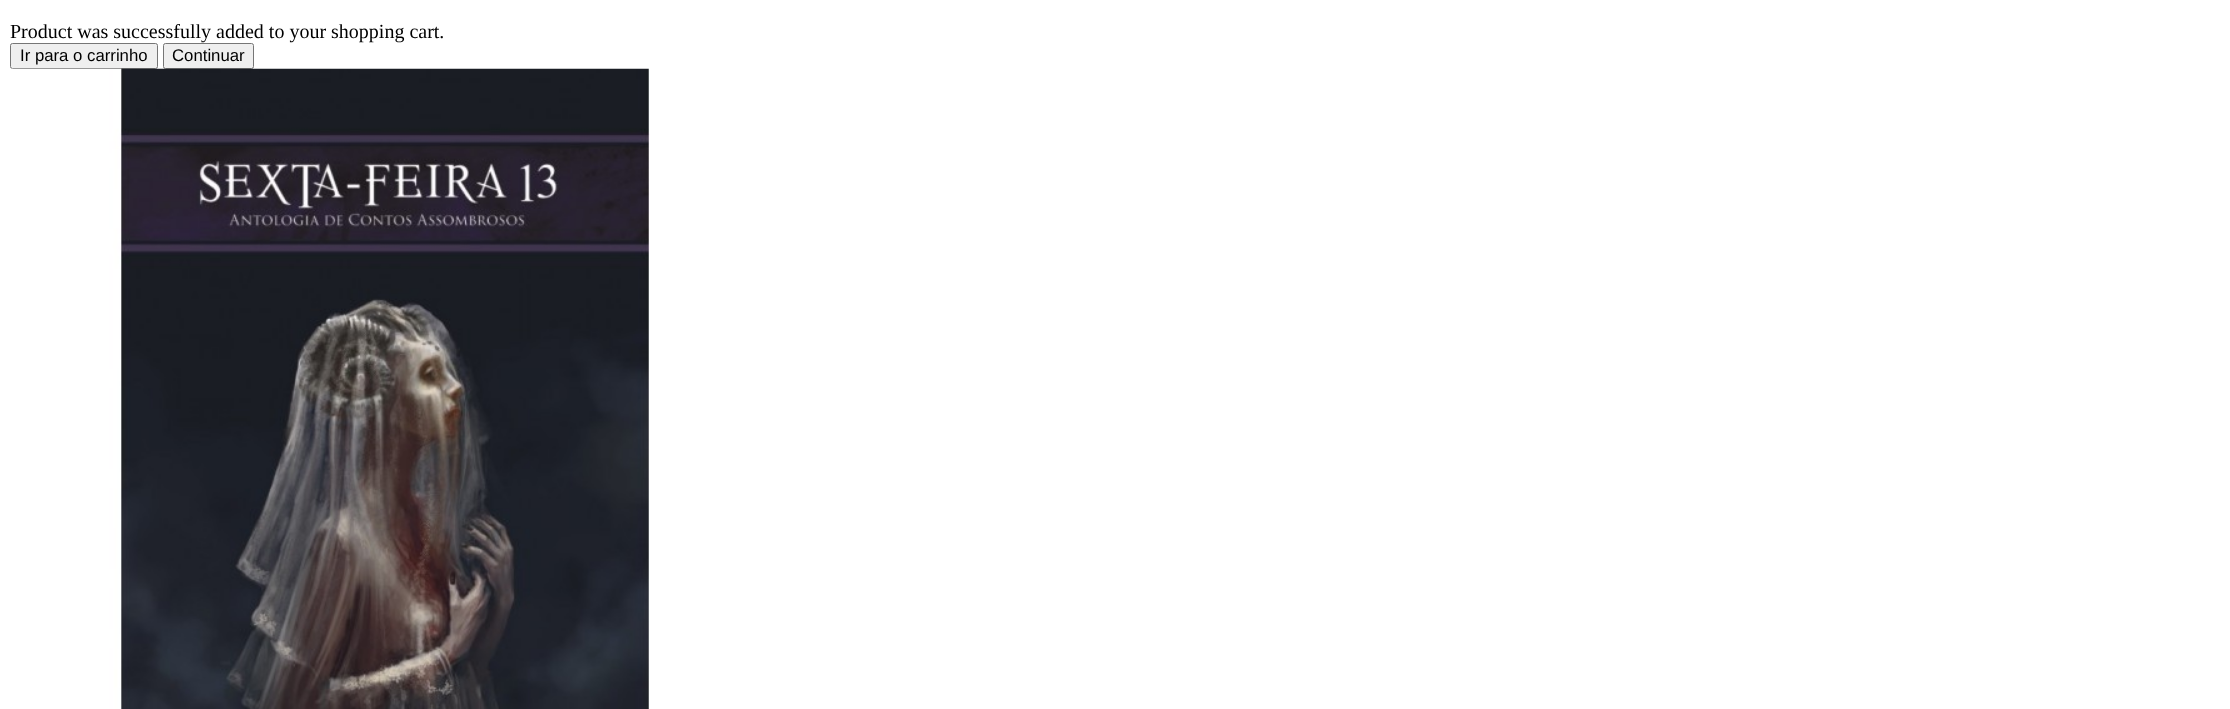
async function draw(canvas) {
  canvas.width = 2230
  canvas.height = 709
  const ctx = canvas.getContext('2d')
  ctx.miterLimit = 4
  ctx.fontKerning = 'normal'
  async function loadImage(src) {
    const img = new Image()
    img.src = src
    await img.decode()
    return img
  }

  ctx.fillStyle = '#fff'
  ctx.fillRect(0, 0, 2230, 709)
  ctx.font = '20px Liberation Serif'
  ctx.fillStyle = '#000'
  ctx.fillText('Product was successfully added to your shopping cart.', 10, 38)
  ctx.fillStyle = '#efefef'
  ctx.beginPath()
  ctx.roundRect(10.5, 43.5, 147, 25, 2)
  ctx.fill()
  ctx.strokeStyle = '#767676'
  ctx.stroke()
  ctx.font = '16.75px Liberation Sans'
  ctx.fillStyle = '#000'
  ctx.fillText('Ir para o carrinho', 20, 61)
  ctx.fillStyle = '#efefef'
  ctx.beginPath()
  ctx.roundRect(163.5, 43.5, 90, 25, 2)
  ctx.fill()
  ctx.stroke()
  ctx.fillStyle = '#000'
  ctx.fillText('Continuar', 172, 61)
  ctx.drawImage(await loadImage('image0.png'), 10, 68, 640, 641)
}

draw(document.querySelector('canvas'))
